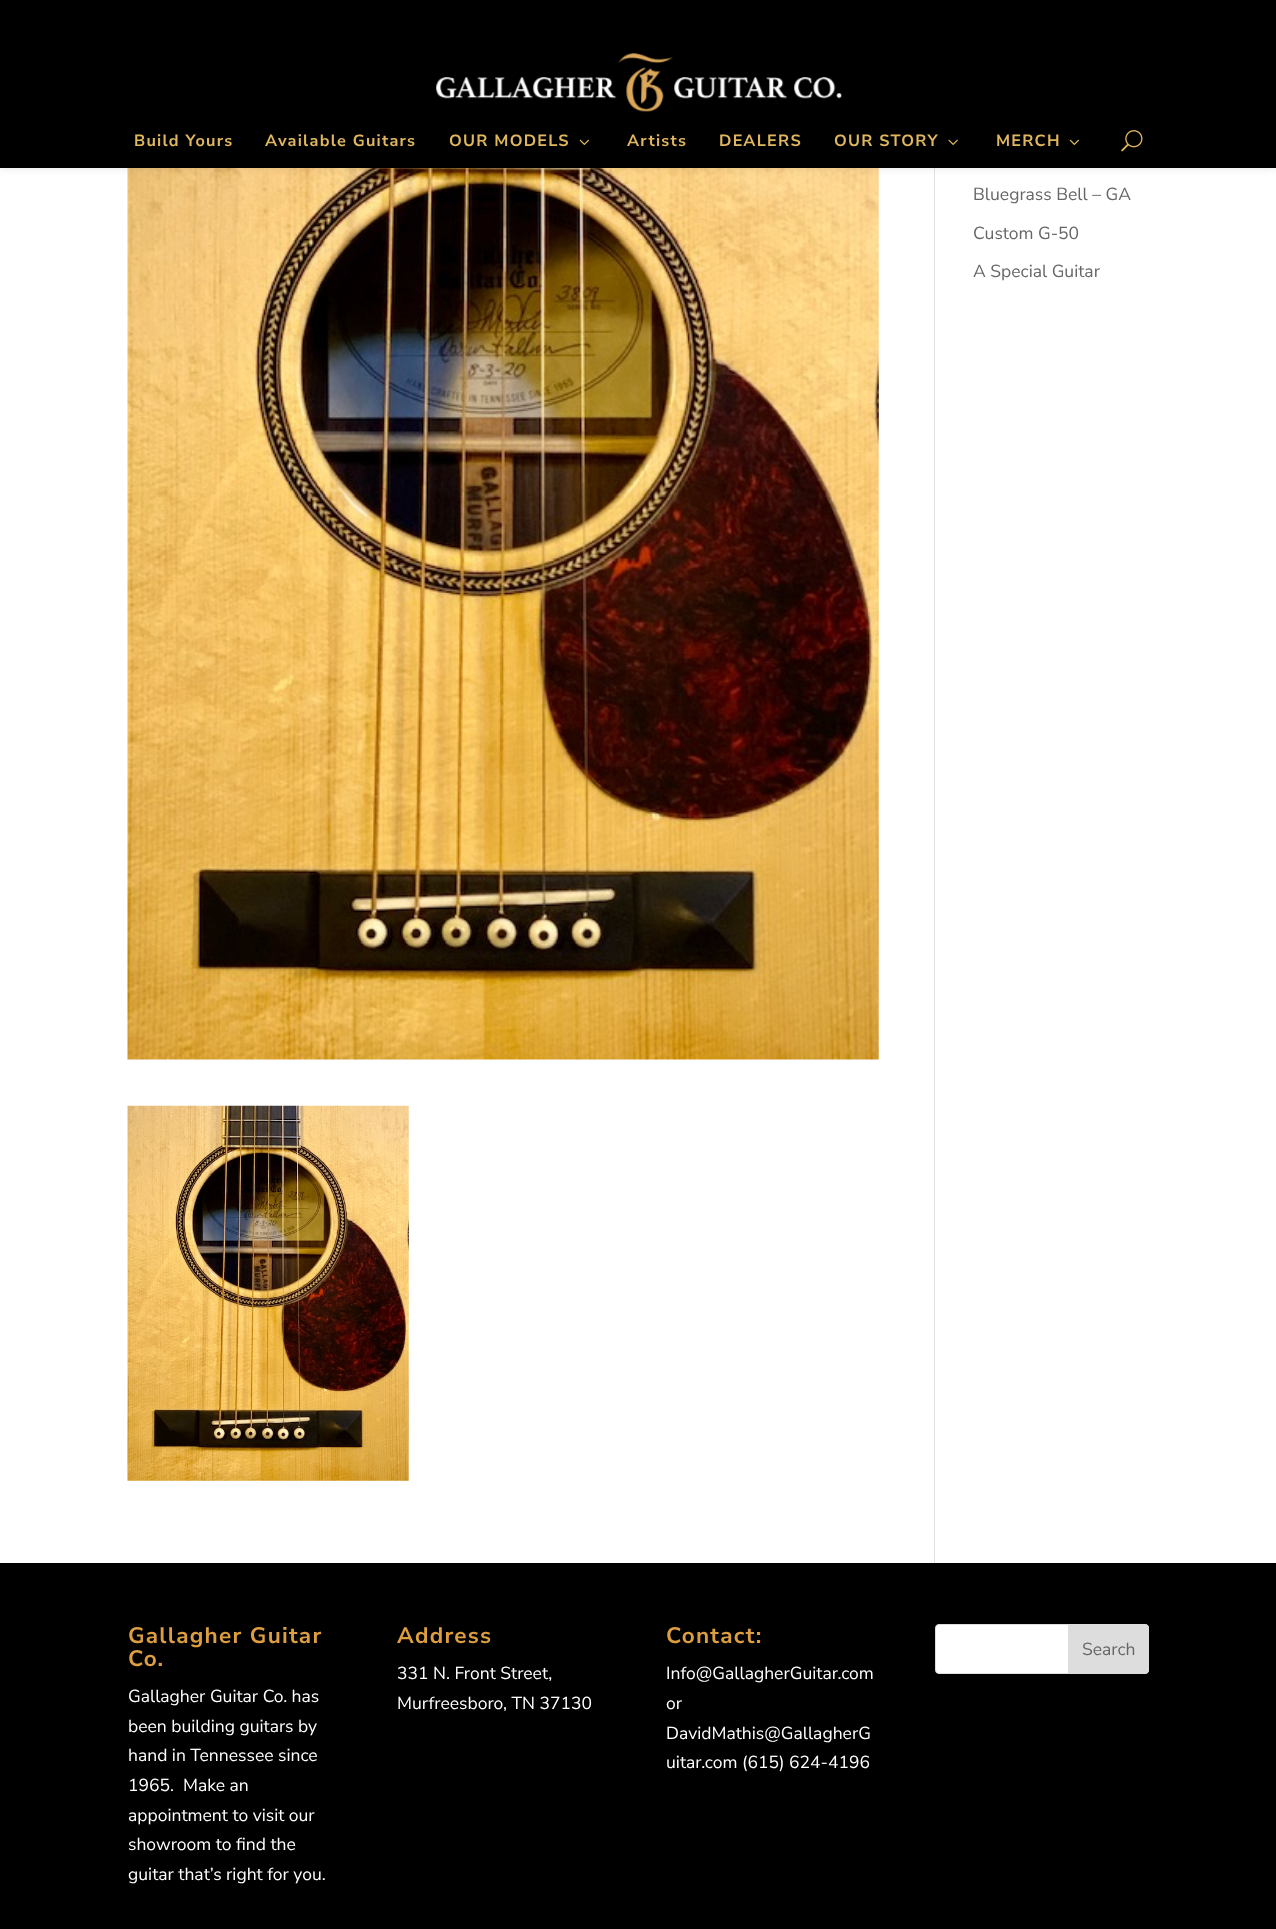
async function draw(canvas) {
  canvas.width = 1276
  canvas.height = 1929
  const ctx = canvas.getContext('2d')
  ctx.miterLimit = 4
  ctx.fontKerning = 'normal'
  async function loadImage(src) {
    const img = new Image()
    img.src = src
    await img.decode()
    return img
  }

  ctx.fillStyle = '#fff'
  ctx.fillRect(0, 0, 1276, 1929)
  ctx.fillStyle = '#e2e2e2'
  ctx.fillRect(934, 168, 1, 1395)
  ctx.drawImage(await loadImage('image4.png'), 127, 168, 752, 892)
  ctx.fillStyle = '#0000001a'
  ctx.filter = 'blur(4.5px)'
  ctx.beginPath()
  ctx.rect(0, 39, 1276, 129)
  ctx.fill()
  ctx.filter = 'none'
  ctx.fillStyle = '#000'
  ctx.fillRect(0, 0, 1276, 168)
  ctx.drawImage(await loadImage('image0.png'), 436, 53, 406, 60)
  ctx.letterSpacing = '1.25px'
  ctx.font = 'bold 16.25px Nunito Sans'
  ctx.fillStyle = '#e0b75e'
  ctx.fillText('Build Yours', 134, 146)
  ctx.fillText('Available Guitars', 265, 146)
  ctx.fillText('OUR MODELS', 449, 146)
  ctx.drawImage(await loadImage('image1.png'), 579, 139, 10, 6)
  ctx.fillText('Artists', 627, 146)
  ctx.fillText('DEALERS', 719, 146)
  ctx.fillText('OUR STORY', 834, 146)
  ctx.drawImage(await loadImage('image2.png'), 948, 139, 10, 6)
  ctx.fillText('MERCH', 996, 146)
  ctx.drawImage(await loadImage('image1.png'), 1069, 139, 10, 6)
  ctx.drawImage(await loadImage('image3.png'), 1121, 130, 22, 22)
  ctx.drawImage(await loadImage('image5.png'), 127, 1105, 282, 376)
  ctx.letterSpacing = '0px'
  ctx.font = '17.5px Nunito Sans'
  ctx.fillStyle = '#666'
  ctx.fillText('Bluegrass Bell – GA', 973, 200)
  ctx.fillText('Custom G-50', 973, 239)
  ctx.fillText('A Special Guitar', 973, 277)
  ctx.fillStyle = '#000'
  ctx.fillRect(0, 1563, 1276, 366)
  ctx.letterSpacing = '1.25px'
  ctx.font = 'bold 22.5px Nunito Sans'
  ctx.fillStyle = '#dd9e40'
  ctx.fillText('Gallagher Guitar', 128, 1643)
  ctx.fillText('Co.', 128, 1666)
  ctx.letterSpacing = '0px'
  ctx.font = '17.5px Nunito Sans'
  ctx.fillStyle = '#fff'
  ctx.fillText('Gallagher Guitar Co. has', 128, 1702)
  ctx.fillText('been building guitars by', 128, 1732)
  ctx.fillText('hand in Tennessee since', 128, 1761)
  ctx.fillText('1965.  Make an', 128, 1791)
  ctx.fillText('appointment to visit our', 128, 1821)
  ctx.fillText('showroom to find the', 128, 1850)
  ctx.fillText('guitar that’s right for you.', 128, 1880)
  ctx.letterSpacing = '1.25px'
  ctx.font = 'bold 22.5px Nunito Sans'
  ctx.fillStyle = '#dd9e40'
  ctx.fillText('Address', 397, 1643)
  ctx.letterSpacing = '0px'
  ctx.font = '17.5px Nunito Sans'
  ctx.fillStyle = '#fff'
  ctx.fillText('331 N. Front Street,', 397, 1679)
  ctx.fillText('Murfreesboro, TN 37130', 397, 1709)
  ctx.letterSpacing = '1.25px'
  ctx.font = 'bold 22.5px Nunito Sans'
  ctx.fillStyle = '#dd9e40'
  ctx.fillText('Contact:', 666, 1643)
  ctx.letterSpacing = '0px'
  ctx.font = '17.5px Nunito Sans'
  ctx.fillStyle = '#fff'
  ctx.fillText('Info@GallagherGuitar.com', 666, 1679)
  ctx.fillText('or', 666, 1709)
  ctx.fillText('DavidMathis@GallagherG', 666, 1739)
  ctx.fillText('uitar.com (615) 624-4196', 666, 1768)
  ctx.beginPath()
  ctx.roundRect(935.5, 1624.5, 213, 49, 3.5)
  ctx.fill()
  ctx.strokeStyle = '#ddd'
  ctx.stroke()
  ctx.fillStyle = '#ddd'
  ctx.beginPath()
  ctx.roundRect(1068.5, 1624.5, 80, 49, [0, 3.5, 3.5, 0])
  ctx.fill()
  ctx.stroke()
  ctx.fillStyle = '#666'
  ctx.fillText('Search', 1082, 1655)
}

draw(document.querySelector('canvas'))
